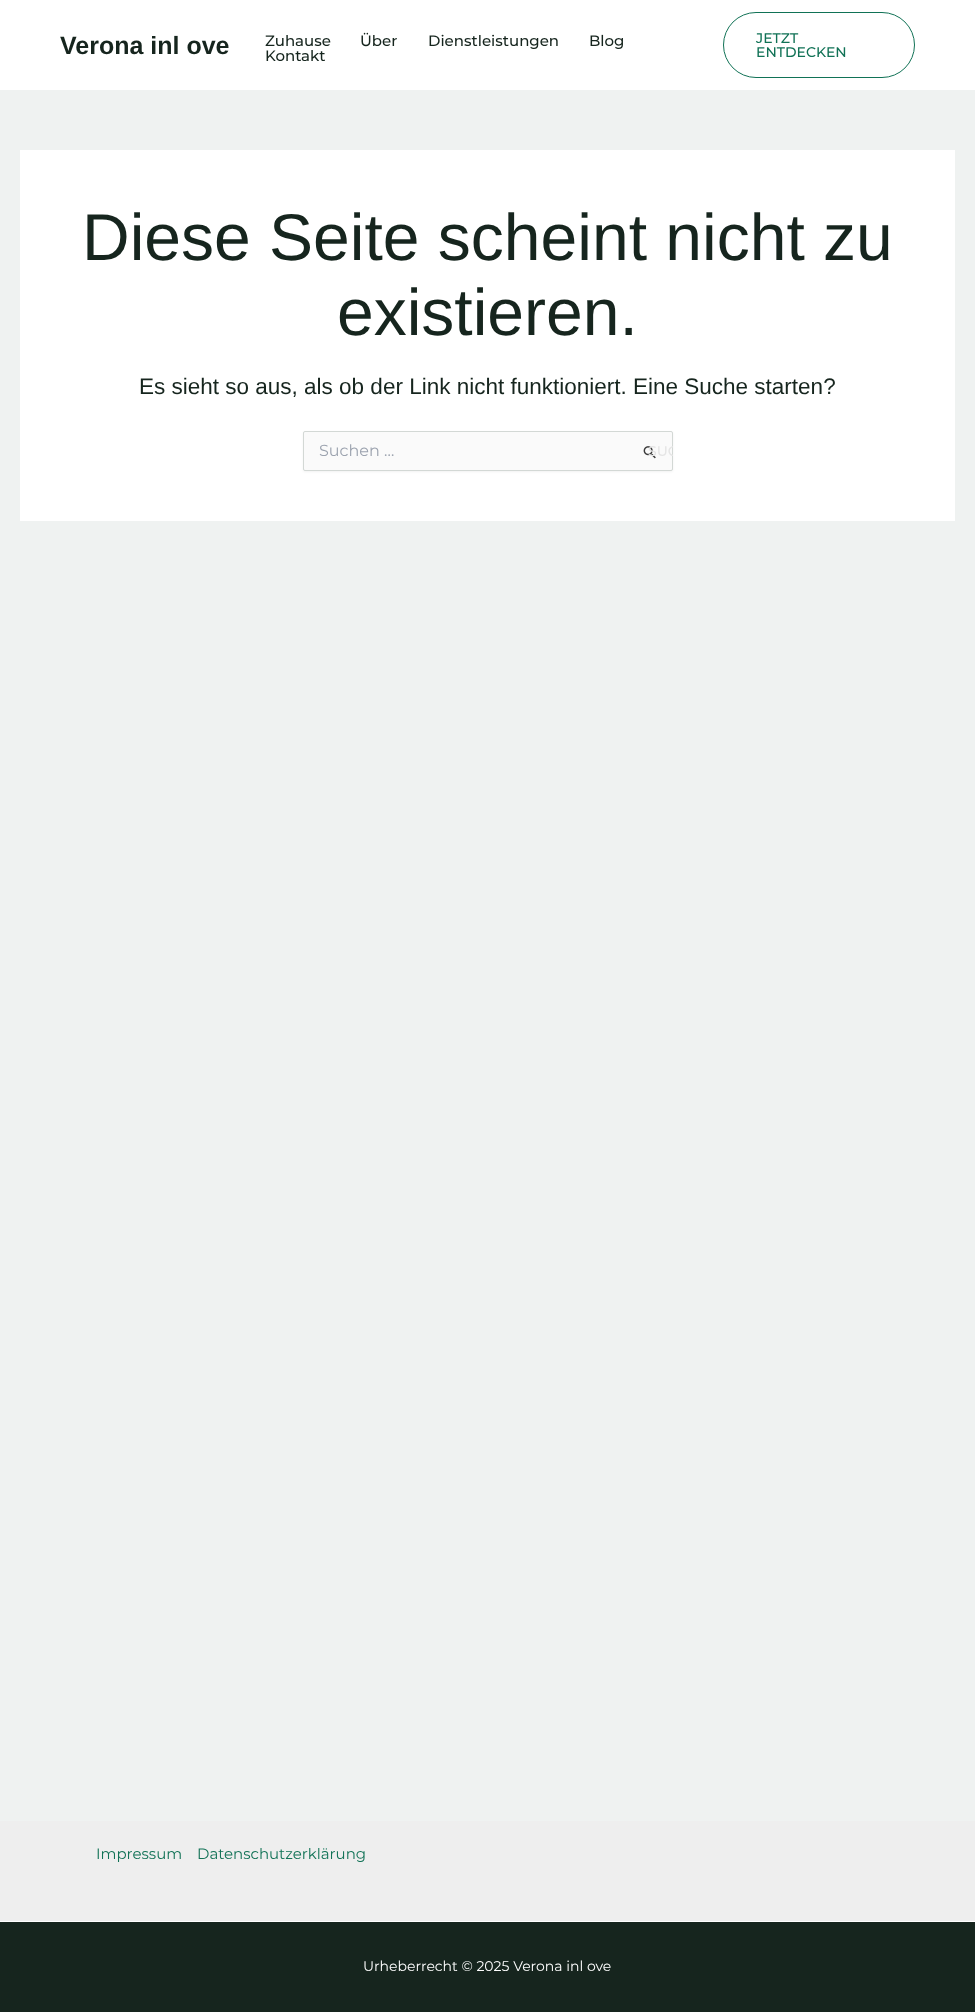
async function draw(canvas) {
  canvas.width = 975
  canvas.height = 2012
  const ctx = canvas.getContext('2d')
  ctx.miterLimit = 4
  ctx.fontKerning = 'normal'
  async function loadImage(src) {
    const img = new Image()
    img.src = src
    await img.decode()
    return img
  }

  ctx.fillStyle = '#eff2f1'
  ctx.fillRect(0, 0, 975, 2012)
  ctx.fillStyle = '#fff'
  ctx.fillRect(0, 0, 975, 90)
  ctx.font = 'bold 25px Liberation Sans'
  ctx.fillStyle = '#16251e'
  ctx.fillText('Verona inl ove', 60, 54)
  ctx.font = '500 15px Montserrat'
  ctx.fillText('Zuhause', 265, 46)
  ctx.fillText('Über', 360, 46)
  ctx.fillText('Dienstleistungen', 428, 46)
  ctx.fillText('Blog', 589, 46)
  ctx.fillText('Kontakt', 265, 61)
  ctx.beginPath()
  ctx.roundRect(723.5, 12.5, 191, 65, 32.5)
  ctx.strokeStyle = '#117256'
  ctx.stroke()
  ctx.font = '500 14px Montserrat'
  ctx.fillStyle = '#117256'
  ctx.fillText('JETZT', 756, 43)
  ctx.fillText('ENTDECKEN', 756, 57)
  ctx.fillStyle = '#fff'
  ctx.fillRect(20, 150, 935, 371)
  ctx.font = '66px Liberation Sans'
  ctx.fillStyle = '#16251e'
  ctx.fillText('Diese Seite scheint nicht zu', 82, 260)
  ctx.fillText('existieren.', 337, 335)
  ctx.font = '22.5px Liberation Sans'
  ctx.fillText('Es sieht so aus, als ob der Link nicht funktioniert. Eine Suche starten?', 139, 394)
  ctx.fillStyle = '#0000000d'
  ctx.filter = 'blur(1px)'
  ctx.beginPath()
  ctx.roundRect(303, 432, 370, 40, 2)
  ctx.fill()
  ctx.filter = 'none'
  ctx.fillStyle = '#fafafa'
  ctx.beginPath()
  ctx.roundRect(303.5, 431.5, 369, 39, 1.5)
  ctx.fill()
  ctx.strokeStyle = '#d3d8d5'
  ctx.stroke()
  ctx.font = '16px Montserrat'
  ctx.fillStyle = '#9ca3af'
  ctx.fillText('Suchen …', 319, 456)
  ctx.drawImage(await loadImage('image0.png'), 643, 446, 13, 13)
  ctx.save()
  ctx.beginPath()
  ctx.roundRect(628, 431, 45, 40, 2)
  ctx.clip()
  ctx.font = '500 14px Montserrat'
  ctx.fillStyle = '#e5e5e5'
  ctx.fillText('SUC', 648, 456)
  ctx.restore()
  ctx.fillStyle = '#eee'
  ctx.fillRect(0, 1821, 975, 100)
  ctx.font = '15px Montserrat'
  ctx.fillStyle = '#117256'
  ctx.fillText('Impressum', 96, 1859)
  ctx.fillText('Datenschutzerklärung', 197, 1859)
  ctx.fillStyle = '#16251e'
  ctx.fillRect(0, 1922, 975, 90)
  ctx.fillStyle = '#fff'
  ctx.fillRect(0, 1921, 975, 1)
  ctx.font = '14px Montserrat'
  ctx.fillText('Urheberrecht © 2025 Verona inl ove', 363, 1971)
}

draw(document.querySelector('canvas'))
